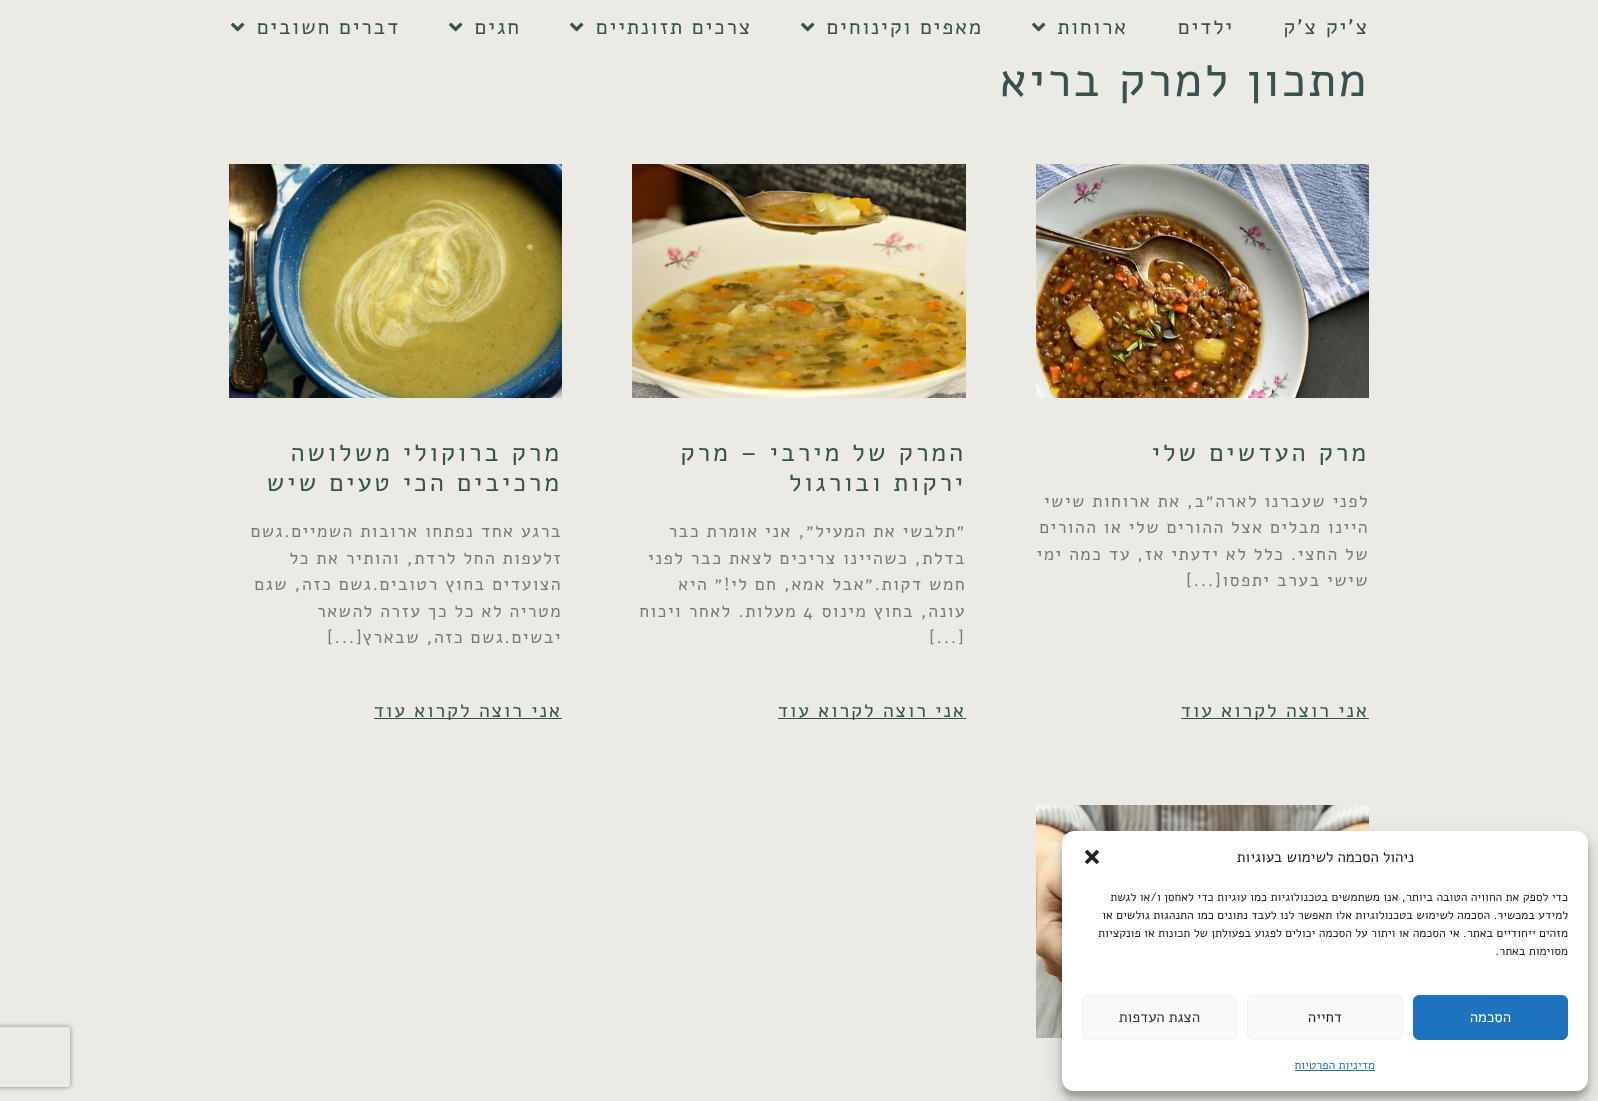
async function draw(canvas) {
  canvas.width = 1598
  canvas.height = 1101
  const ctx = canvas.getContext('2d')
  ctx.miterLimit = 4
  ctx.fontKerning = 'normal'
  async function loadImage(src) {
    const img = new Image()
    img.src = src
    await img.decode()
    return img
  }

  ctx.fillStyle = '#ebeae4'
  ctx.fillRect(0, 0, 1598, 1101)
  ctx.letterSpacing = '1.9px'
  ctx.direction = 'rtl'
  ctx.font = '21px Alef'
  ctx.fillStyle = '#38524f'
  ctx.fillText('צ\'יק צ\'ק', 1369, 34)
  ctx.fillText('ילדים', 1234, 34)
  ctx.fillText('ארוחות', 1128, 34)
  ctx.drawImage(await loadImage('image0.png'), 1032, 22, 14, 10)
  ctx.fillText('מאפים וקינוחים', 983, 34)
  ctx.drawImage(await loadImage('image0.png'), 801, 22, 14, 10)
  ctx.fillText('צרכים תזונתיים', 752, 34)
  ctx.drawImage(await loadImage('image0.png'), 570, 22, 14, 10)
  ctx.fillText('חגים', 521, 34)
  ctx.drawImage(await loadImage('image0.png'), 449, 22, 14, 10)
  ctx.fillText('דברים חשובים', 400, 34)
  ctx.drawImage(await loadImage('image0.png'), 231, 22, 14, 10)
  ctx.letterSpacing = '2.75px'
  ctx.font = '47.5px Alef'
  ctx.fillText('מתכון למרק בריא', 1369, 96)
  ctx.drawImage(await loadImage('image1.png'), 1036, 164, 333, 234)
  ctx.letterSpacing = '3px'
  ctx.font = '25.3px Alef'
  ctx.fillText('מרק העדשים שלי', 1369, 461)
  ctx.letterSpacing = '1.5px'
  ctx.font = '17.6px Alef'
  ctx.fillStyle = '#7a7a7a'
  ctx.fillText('לפני שעברנו לארה״ב, את ארוחות שישי', 1369, 507)
  ctx.fillText('היינו מבלים אצל ההורים שלי או ההורים', 1369, 533)
  ctx.fillText('של החצי. כלל לא ידעתי אז, עד כמה ימי', 1369, 560)
  ctx.fillText('שישי בערב יתפסו', 1369, 586)
  ctx.direction = 'ltr'
  ctx.fillText('[...]', 1186, 586)
  ctx.fillStyle = '#38524f'
  ctx.fillRect(1181, 718, 188, 1)
  ctx.letterSpacing = '2px'
  ctx.direction = 'rtl'
  ctx.font = '19.4px Alef'
  ctx.fillText('אני רוצה לקרוא עוד', 1369, 717)
  ctx.drawImage(await loadImage('image2.png'), 632, 164, 334, 234)
  ctx.letterSpacing = '3px'
  ctx.font = '25.3px Alef'
  ctx.fillText('המרק של מירבי – מרק', 966, 461)
  ctx.fillText('ירקות ובורגול', 966, 491)
  ctx.letterSpacing = '1.5px'
  ctx.font = '17.6px Alef'
  ctx.fillStyle = '#7a7a7a'
  ctx.fillText('״תלבשי את המעיל״, אני אומרת כבר', 966, 537)
  ctx.fillText('בדלת, כשהיינו צריכים לצאת כבר לפני', 966, 564)
  ctx.fillText('חמש דקות.״אבל אמא, חם לי!״ היא', 966, 590)
  ctx.fillText('עונה, בחוץ מינוס', 966, 617)
  ctx.direction = 'ltr'
  ctx.fillText('4', 803, 617)
  ctx.direction = 'rtl'
  ctx.fillText('מעלות. לאחר ויכוח', 797, 617)
  ctx.direction = 'ltr'
  ctx.fillText('[...]', 929, 643)
  ctx.fillStyle = '#38524f'
  ctx.fillRect(778, 718, 188, 1)
  ctx.letterSpacing = '2px'
  ctx.direction = 'rtl'
  ctx.font = '19.4px Alef'
  ctx.fillText('אני רוצה לקרוא עוד', 966, 717)
  ctx.drawImage(await loadImage('image3.png'), 229, 164, 333, 234)
  ctx.letterSpacing = '3px'
  ctx.font = '25.3px Alef'
  ctx.fillText('מרק ברוקולי משלושה', 562, 461)
  ctx.fillText('מרכיבים הכי טעים שיש', 562, 491)
  ctx.letterSpacing = '1.5px'
  ctx.font = '17.6px Alef'
  ctx.fillStyle = '#7a7a7a'
  ctx.fillText('ברגע אחד נפתחו ארובות השמיים.גשם', 562, 537)
  ctx.fillText('זלעפות החל לרדת, והותיר את כל', 562, 564)
  ctx.fillText('הצועדים בחוץ רטובים.גשם כזה, שגם', 562, 590)
  ctx.fillText('מטריה לא כל כך עזרה להשאר', 562, 617)
  ctx.fillText('יבשים.גשם כזה, שבארץ', 562, 643)
  ctx.direction = 'ltr'
  ctx.fillText('[...]', 327, 643)
  ctx.fillStyle = '#38524f'
  ctx.fillRect(374, 718, 188, 1)
  ctx.letterSpacing = '2px'
  ctx.direction = 'rtl'
  ctx.font = '19.4px Alef'
  ctx.fillText('אני רוצה לקרוא עוד', 562, 717)
  ctx.drawImage(await loadImage('image4.png'), 1036, 805, 333, 233)
  ctx.fillStyle = '#0000003b'
  ctx.filter = 'blur(3px)'
  ctx.beginPath()
  ctx.roundRect(1062, 837, 526, 260, 12)
  ctx.fill()
  ctx.filter = 'none'
  ctx.fillStyle = '#00000030'
  ctx.filter = 'blur(10px)'
  ctx.beginPath()
  ctx.roundRect(1062, 841, 526, 260, 12)
  ctx.fill()
  ctx.filter = 'none'
  ctx.fillStyle = '#fff'
  ctx.beginPath()
  ctx.roundRect(1062, 831, 526, 260, 12)
  ctx.fill()
  ctx.letterSpacing = '0px'
  ctx.font = '15px Alef'
  ctx.fillStyle = '#222'
  ctx.fillText('ניהול הסכמה לשימוש בעוגיות', 1414, 862)
  ctx.drawImage(await loadImage('image5.png'), 1085, 850, 14, 14)
  ctx.font = '12px Alef'
  ctx.fillText('כדי לספק את החוויה הטובה ביותר, אנו משתמשים בטכנולוגיות כמו עוגיות כדי לאחסן ו/או לגשת', 1568, 901)
  ctx.fillText('למידע במכשיר. הסכמה לשימוש בטכנולוגיות אלו תאפשר לנו לעבד נתונים כמו התנהגות גולשים או', 1568, 919)
  ctx.fillText('מזהים ייחודיים באתר. אי הסכמה או ויתור על הסכמה יכולים לפגוע בפעולתן של תכונות או פונקציות', 1568, 937)
  ctx.fillText('מסוימות באתר.', 1568, 955)
  ctx.fillStyle = '#1e73be'
  ctx.beginPath()
  ctx.roundRect(1413.5, 995.5, 154, 44, 5.5)
  ctx.fill()
  ctx.strokeStyle = '#1e73be'
  ctx.stroke()
  ctx.font = '15px Alef'
  ctx.fillStyle = '#fff'
  ctx.fillText('הסכמה', 1511, 1022)
  ctx.fillStyle = '#f9f9f9'
  ctx.beginPath()
  ctx.roundRect(1247.5, 995.5, 155, 44, 5.5)
  ctx.fill()
  ctx.strokeStyle = '#f2f2f2'
  ctx.stroke()
  ctx.fillStyle = '#222'
  ctx.fillText('דחייה', 1342, 1022)
  ctx.fillStyle = '#f9f9f9'
  ctx.beginPath()
  ctx.roundRect(1082.5, 995.5, 154, 44, 5.5)
  ctx.fill()
  ctx.stroke()
  ctx.fillStyle = '#333'
  ctx.fillText('הצגת העדפות', 1200, 1022)
  ctx.font = '12px Alef'
  ctx.fillStyle = '#1e73be'
  ctx.fillText('מדיניות הפרטיות', 1375, 1069)
  ctx.fillRect(1295, 1070, 80, 1)
  ctx.save()
  ctx.beginPath()
  ctx.moveTo(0, 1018)
  ctx.lineTo(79, 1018)
  ctx.lineTo(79, 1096)
  ctx.lineTo(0, 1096)
  ctx.closePath()
  ctx.moveTo(-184, 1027)
  ctx.lineTo(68, 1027)
  ctx.bezierCurveTo(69, 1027, 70, 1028, 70, 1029)
  ctx.lineTo(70, 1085)
  ctx.bezierCurveTo(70, 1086, 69, 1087, 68, 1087)
  ctx.lineTo(-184, 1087)
  ctx.bezierCurveTo(-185, 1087, -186, 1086, -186, 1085)
  ctx.lineTo(-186, 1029)
  ctx.bezierCurveTo(-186, 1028, -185, 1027, -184, 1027)
  ctx.closePath()
  ctx.clip('evenodd')
  ctx.fillStyle = '#808080'
  ctx.filter = 'blur(2.5px)'
  ctx.beginPath()
  ctx.roundRect(-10, 1027, 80, 60, 2)
  ctx.fill()
  ctx.filter = 'none'
  ctx.restore()
}

draw(document.querySelector('canvas'))
